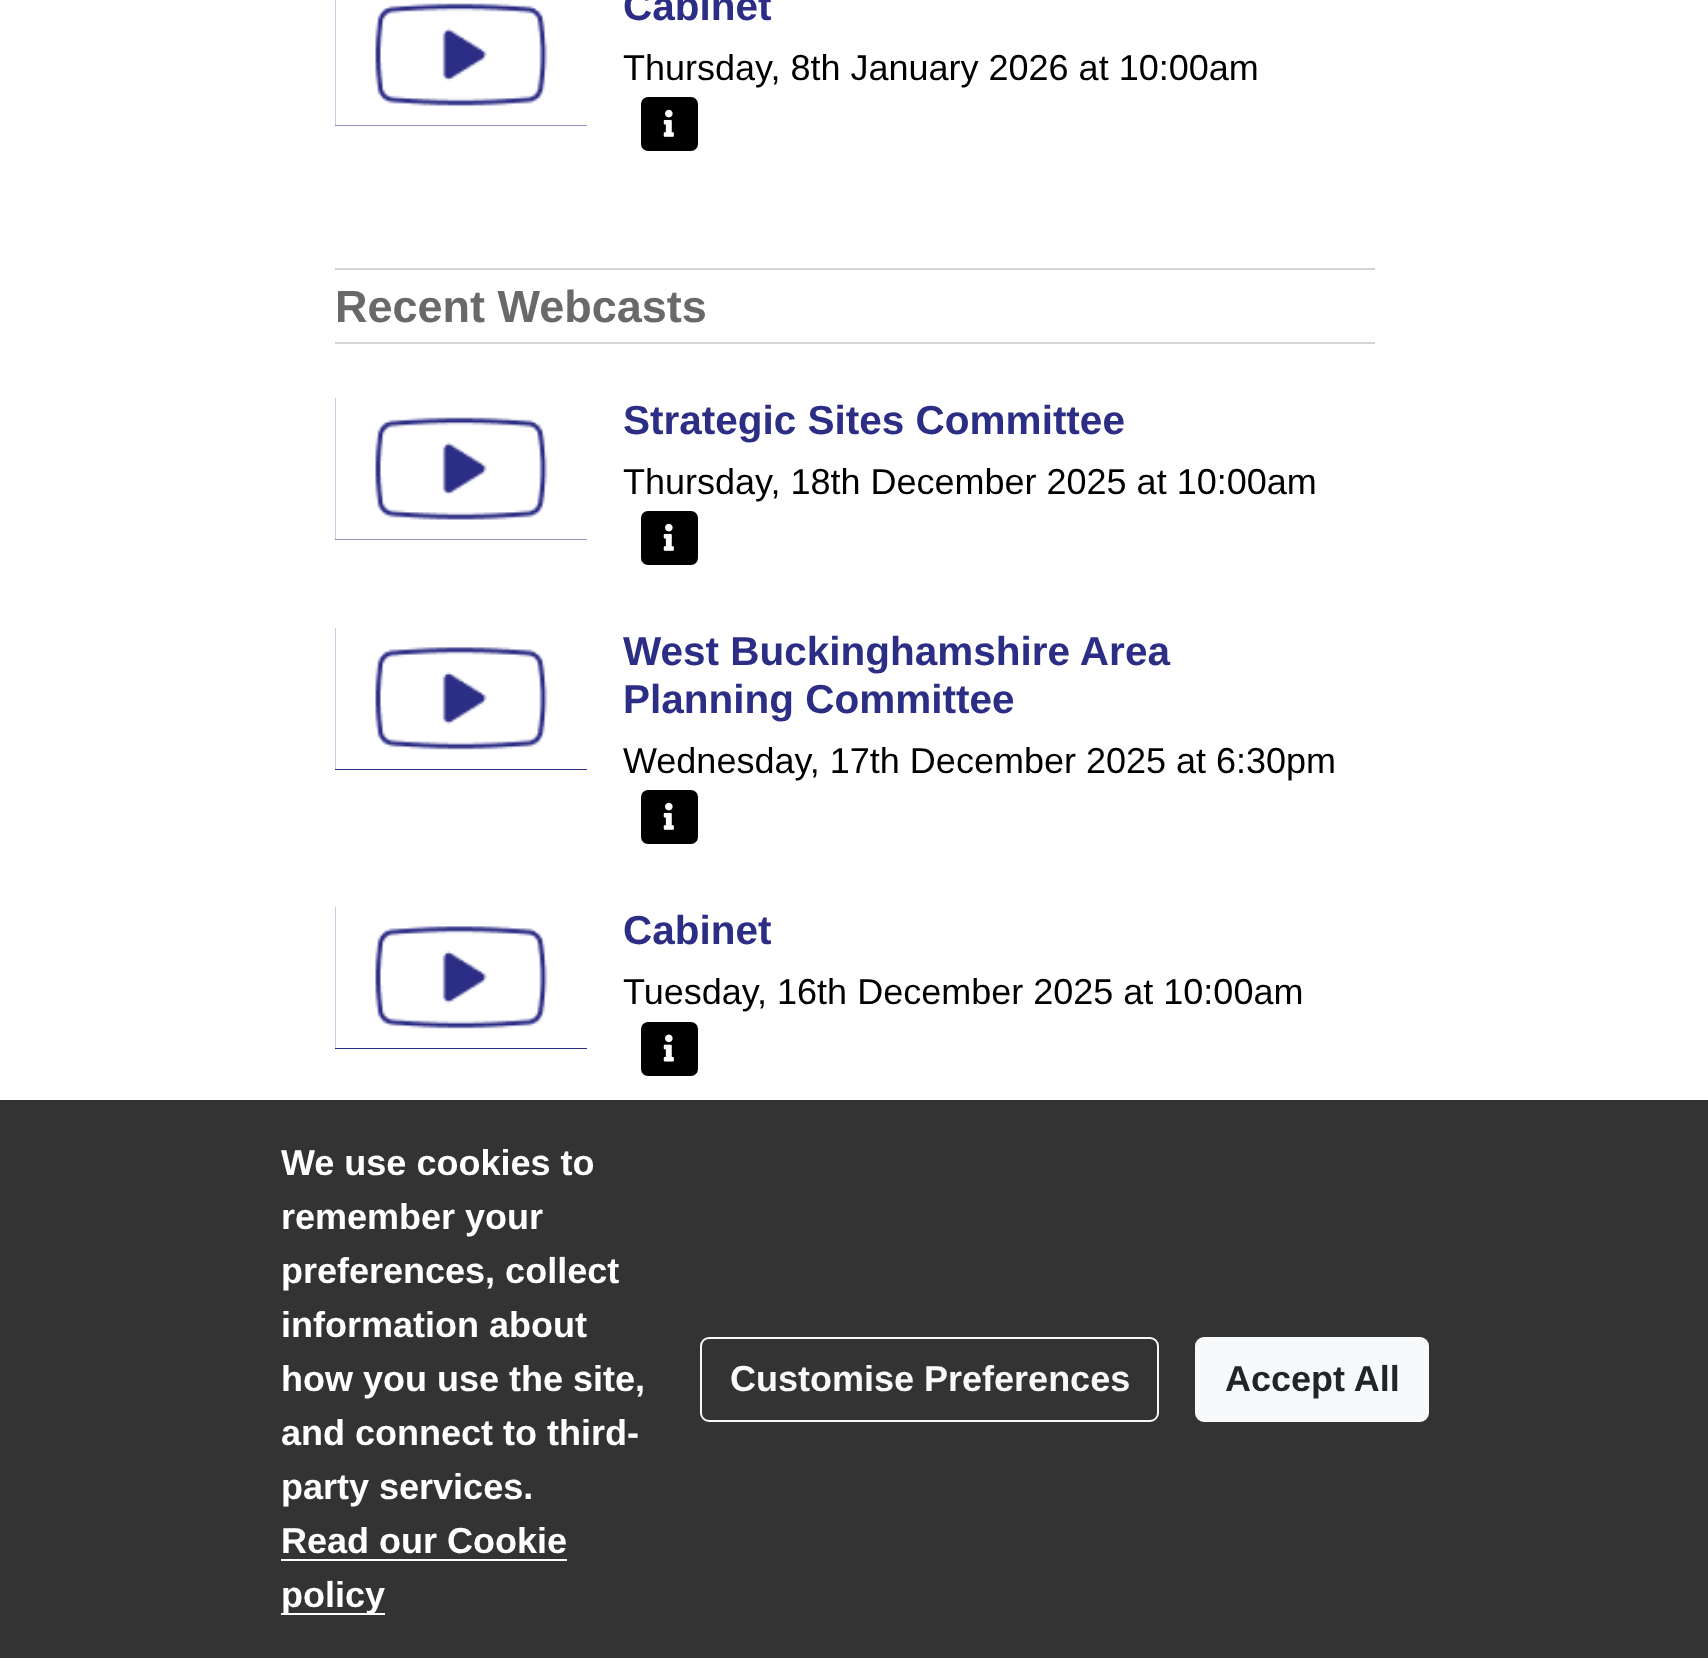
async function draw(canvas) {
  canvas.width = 1708
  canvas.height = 1658
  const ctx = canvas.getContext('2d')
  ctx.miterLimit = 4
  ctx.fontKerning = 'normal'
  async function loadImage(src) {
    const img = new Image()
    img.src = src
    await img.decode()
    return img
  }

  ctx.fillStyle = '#fff'
  ctx.fillRect(0, 0, 1708, 1658)
  ctx.fillStyle = '#2c2d84'
  ctx.fillRect(335, 0, 252, 126)
  ctx.drawImage(await loadImage('image0.png'), 335, 0, 252, 126)
  ctx.font = 'bold 40.5px Liberation Sans'
  ctx.fillText('Cabinet', 623, 20)
  ctx.font = '36px Liberation Sans'
  ctx.fillStyle = '#000'
  ctx.fillText('Thursday, 8th January 2026 at 10:00am', 623, 80)
  ctx.beginPath()
  ctx.roundRect(642, 98, 55, 52, 6)
  ctx.fill()
  ctx.strokeStyle = '#000'
  ctx.lineWidth = 2
  ctx.stroke()
  ctx.drawImage(await loadImage('image1.png'), 663, 109, 11, 28)
  ctx.fillStyle = '#d5d5d5'
  ctx.fillRect(335, 268, 1040, 2)
  ctx.fillRect(335, 342, 1040, 2)
  ctx.font = 'bold 45px Liberation Sans'
  ctx.fillStyle = '#696969'
  ctx.fillText('Recent Webcasts', 335, 322)
  ctx.fillStyle = '#2c2d84'
  ctx.fillRect(335, 398, 252, 142)
  ctx.drawImage(await loadImage('image2.png'), 335, 398, 252, 142)
  ctx.font = 'bold 40.5px Liberation Sans'
  ctx.fillText('Strategic Sites Committee', 623, 434)
  ctx.font = '36px Liberation Sans'
  ctx.fillStyle = '#000'
  ctx.fillText('Thursday, 18th December 2025 at 10:00am', 623, 494)
  ctx.beginPath()
  ctx.roundRect(642, 512, 55, 52, 6)
  ctx.fill()
  ctx.stroke()
  ctx.drawImage(await loadImage('image1.png'), 663, 523, 11, 28)
  ctx.fillStyle = '#2c2d84'
  ctx.fillRect(335, 628, 252, 142)
  ctx.drawImage(await loadImage('image3.png'), 335, 628, 252, 141)
  ctx.font = 'bold 40.5px Liberation Sans'
  ctx.fillText('West Buckinghamshire Area', 623, 665)
  ctx.fillText('Planning Committee', 623, 713)
  ctx.font = '36px Liberation Sans'
  ctx.fillStyle = '#000'
  ctx.fillText('Wednesday, 17th December 2025 at 6:30pm', 623, 773)
  ctx.beginPath()
  ctx.roundRect(642, 791, 55, 52, 6)
  ctx.fill()
  ctx.stroke()
  ctx.drawImage(await loadImage('image1.png'), 663, 802, 11, 28)
  ctx.fillStyle = '#2c2d84'
  ctx.fillRect(335, 907, 252, 142)
  ctx.drawImage(await loadImage('image3.png'), 335, 907, 252, 141)
  ctx.font = 'bold 40.5px Liberation Sans'
  ctx.fillText('Cabinet', 623, 944)
  ctx.font = '36px Liberation Sans'
  ctx.fillStyle = '#000'
  ctx.fillText('Tuesday, 16th December 2025 at 10:00am', 623, 1004)
  ctx.beginPath()
  ctx.roundRect(642, 1023, 55, 52, 6)
  ctx.fill()
  ctx.stroke()
  ctx.drawImage(await loadImage('image4.png'), 663, 1034, 11, 28)
  ctx.fillStyle = '#333'
  ctx.fillRect(0, 1100, 1708, 558)
  ctx.font = 'bold 36px Liberation Sans'
  ctx.fillStyle = '#fff'
  ctx.fillText('We use cookies to', 281, 1175)
  ctx.fillText('remember your', 281, 1229)
  ctx.fillText('preferences, collect', 281, 1283)
  ctx.fillText('information about', 281, 1337)
  ctx.fillText('how you use the site,', 281, 1391)
  ctx.fillText('and connect to third-', 281, 1445)
  ctx.fillText('party services.', 281, 1499)
  ctx.fillText('Read our Cookie', 281, 1553)
  ctx.fillRect(281, 1559, 286, 2)
  ctx.fillRect(281, 1613, 104, 2)
  ctx.fillText('policy', 281, 1607)
  ctx.beginPath()
  ctx.roundRect(701, 1338, 457, 83, 8)
  ctx.strokeStyle = '#f8f9fa'
  ctx.stroke()
  ctx.fillStyle = '#f8f9fa'
  ctx.fillText('Customise Preferences', 730, 1391)
  ctx.beginPath()
  ctx.roundRect(1196, 1338, 232, 83, 8)
  ctx.fill()
  ctx.stroke()
  ctx.fillStyle = '#212529'
  ctx.fillText('Accept All', 1225, 1391)
}

draw(document.querySelector('canvas'))
